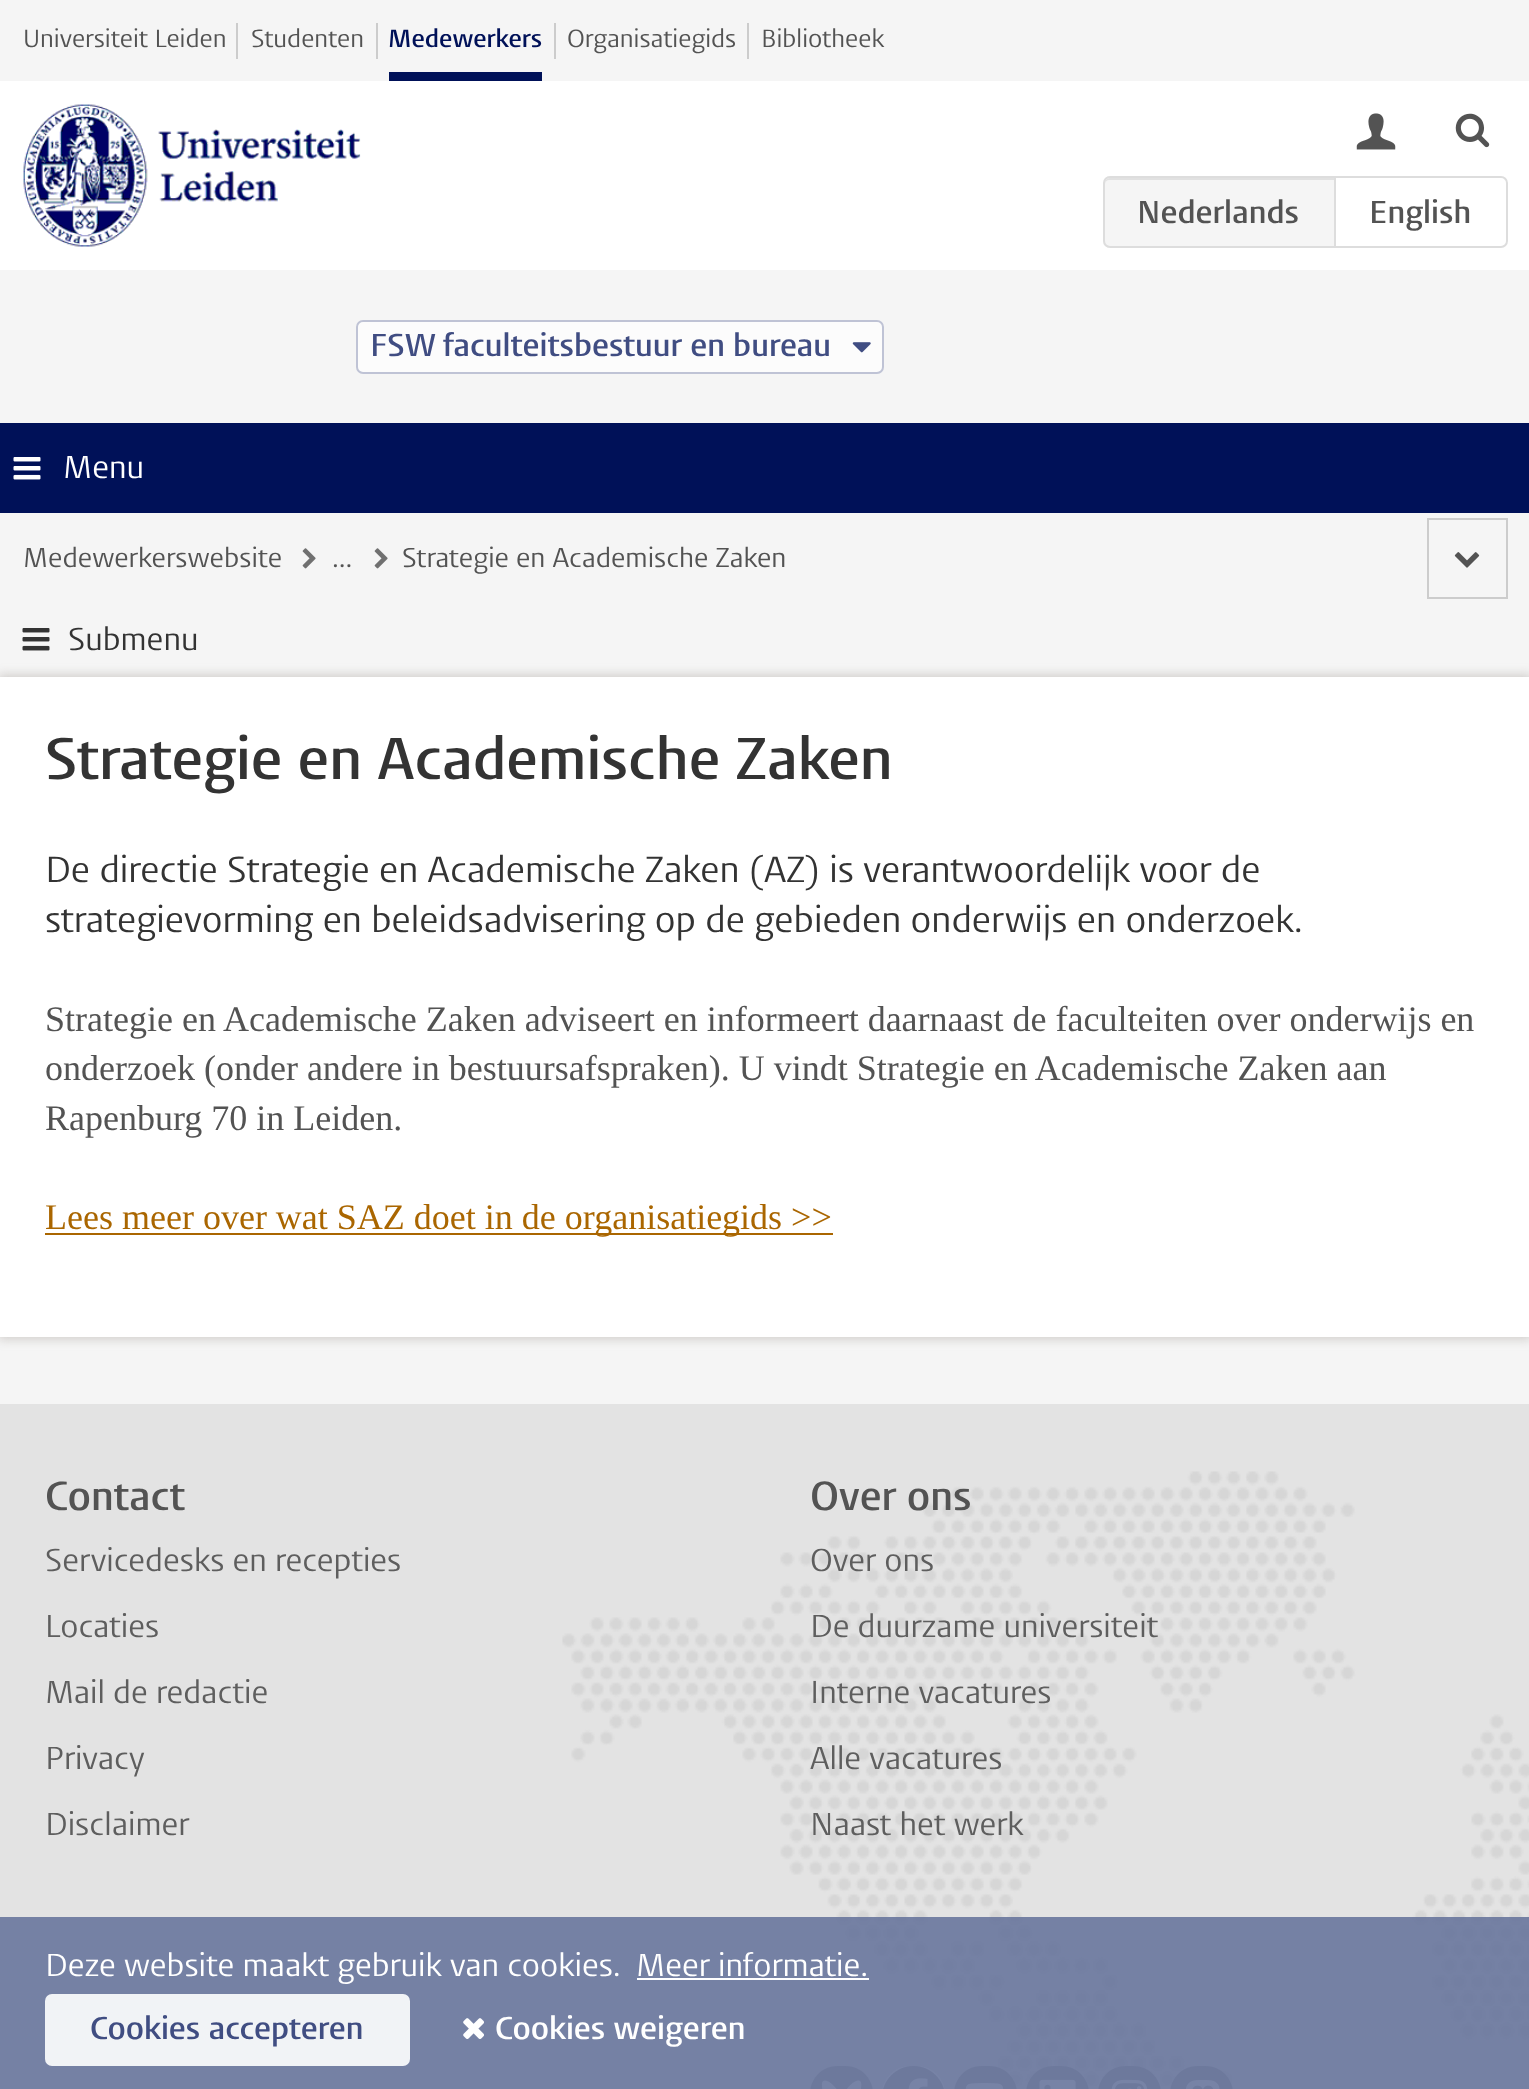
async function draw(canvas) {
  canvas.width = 1529
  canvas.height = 2089
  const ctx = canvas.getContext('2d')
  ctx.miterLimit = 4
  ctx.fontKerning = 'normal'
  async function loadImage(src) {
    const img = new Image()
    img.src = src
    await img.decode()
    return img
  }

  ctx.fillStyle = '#f5f5f5'
  ctx.fillRect(0, 0, 1529, 2089)
  ctx.fillStyle = '#fff'
  ctx.fillRect(0, 81, 1529, 189)
  ctx.fillStyle = '#ccc'
  ctx.fillRect(236, 23, 2, 36)
  ctx.font = '24.75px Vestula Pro'
  ctx.fillStyle = '#535353'
  ctx.fillText('Universiteit Leiden', 23, 47)
  ctx.fillStyle = '#ccc'
  ctx.fillRect(376, 23, 2, 36)
  ctx.fillStyle = '#535353'
  ctx.fillText('Studenten', 251, 47)
  ctx.fillStyle = '#ccc'
  ctx.fillRect(554, 23, 2, 36)
  ctx.font = '600 24.75px Vestula Pro'
  ctx.fillStyle = '#001158'
  ctx.fillText('Medewerkers', 388, 47)
  ctx.fillRect(389, 72, 153, 9)
  ctx.fillStyle = '#ccc'
  ctx.fillRect(747, 23, 2, 36)
  ctx.font = '24.75px Vestula Pro'
  ctx.fillStyle = '#535353'
  ctx.fillText('Organisatiegids', 567, 47)
  ctx.fillText('Bibliotheek', 761, 47)
  ctx.drawImage(await loadImage('image0.png'), 23, 104, 338, 143)
  ctx.drawImage(await loadImage('image1.png'), 1356, 113, 40, 37)
  ctx.drawImage(await loadImage('image2.png'), 1455, 113, 35, 35)
  ctx.fillStyle = '#f5f5f5'
  ctx.beginPath()
  ctx.roundRect(1103, 176, 234, 72, [7, 0, 0, 7])
  ctx.fill()
  ctx.fillStyle = '#e1e1e1'
  ctx.beginPath()
  ctx.moveTo(1109, 180)
  ctx.lineTo(1334, 180)
  ctx.lineTo(1334, 178)
  ctx.lineTo(1110, 178)
  ctx.bezierCurveTo(1107, 178, 1105, 181, 1105, 184)
  ctx.bezierCurveTo(1105, 182, 1107, 180, 1109, 180)
  ctx.closePath()
  ctx.fill()
  ctx.beginPath()
  ctx.roundRect(1104, 177, 232, 70, [6, 0, 0, 6])
  ctx.strokeStyle = '#ddd'
  ctx.lineWidth = 2
  ctx.stroke()
  ctx.font = '600 31.5px Vestula Pro'
  ctx.fillStyle = '#535353'
  ctx.fillText('Nederlands', 1137, 223)
  ctx.fillStyle = '#fff'
  ctx.beginPath()
  ctx.roundRect(1335, 177, 172, 70, [0, 6, 6, 0])
  ctx.fill()
  ctx.stroke()
  ctx.fillStyle = '#535353'
  ctx.fillText('English', 1369, 223)
  ctx.fillStyle = '#fcfcfc'
  ctx.beginPath()
  ctx.roundRect(357, 321, 526, 52, 6)
  ctx.fill()
  ctx.strokeStyle = '#bfc3d5'
  ctx.stroke()
  ctx.fillStyle = '#404d82'
  ctx.fillText('FSW faculteitsbestuur en bureau', 370, 356)
  ctx.drawImage(await loadImage('image3.png'), 852, 342, 19, 11)
  ctx.fillStyle = '#001158'
  ctx.fillRect(0, 423, 1529, 90)
  ctx.drawImage(await loadImage('image4.png'), 13, 457, 28, 23)
  ctx.font = '31.5px Vestula Pro'
  ctx.fillStyle = '#fff'
  ctx.fillText('Menu', 63, 478)
  ctx.font = '27px Vestula Pro'
  ctx.fillStyle = '#535353'
  ctx.fillText('Medewerkerswebsite', 23, 567)
  ctx.drawImage(await loadImage('image5.png'), 302, 548, 14, 21)
  ctx.fillText('...', 332, 567)
  ctx.drawImage(await loadImage('image5.png'), 374, 548, 14, 21)
  ctx.fillText('Strategie en Academische Zaken', 402, 567)
  ctx.strokeStyle = '#ccc'
  ctx.strokeRect(1428, 519, 79, 79)
  ctx.drawImage(await loadImage('image6.png'), 1454, 552, 26, 16)
  ctx.drawImage(await loadImage('image7.png'), 22, 628, 28, 23)
  ctx.font = '31.5px Vestula Pro'
  ctx.fillStyle = '#333'
  ctx.fillText('Submenu', 68, 650)
  ctx.fillStyle = '#786e644d'
  ctx.filter = 'blur(5.5px)'
  ctx.beginPath()
  ctx.rect(-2, 675, 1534, 664)
  ctx.fill()
  ctx.filter = 'none'
  ctx.fillStyle = '#fff'
  ctx.fillRect(0, 677, 1529, 660)
  ctx.font = '600 58.5px Vestula Pro'
  ctx.fillStyle = '#333'
  ctx.fillText('Strategie en Academische Zaken', 45, 779)
  ctx.font = '36px Vestula Pro'
  ctx.fillText('De directie Strategie en Academische Zaken (AZ) is verantwoordelijk voor de', 45, 882)
  ctx.fillText('strategievorming en beleidsadvisering op de gebieden onderwijs en onderzoek.', 45, 932)
  ctx.font = '36px Liberation Serif'
  ctx.fillStyle = '#535353'
  ctx.fillText('Strategie en Academische Zaken adviseert en informeert daarnaast de faculteiten over onderwijs en', 45, 1031)
  ctx.fillText('onderzoek (onder andere in bestuursafspraken). U vindt Strategie en Academische Zaken aan', 45, 1080)
  ctx.fillText('Rapenburg 70 in Leiden.', 45, 1130)
  ctx.fillStyle = '#a60'
  ctx.fillRect(45, 1233, 788, 2)
  ctx.fillText('Lees meer over wat SAZ doet in de organisatiegids >>', 45, 1229)
  ctx.fillStyle = '#e3e3e3'
  ctx.fillRect(0, 1404, 1529, 685)
  ctx.drawImage(await loadImage('image8.png'), 562, 1471, 967, 615)
  ctx.font = '600 40.5px Vestula Pro'
  ctx.fillStyle = '#535353'
  ctx.fillText('Contact', 45, 1510)
  ctx.font = '31.5px Vestula Pro'
  ctx.fillStyle = '#5e5e5e'
  ctx.fillText('Servicedesks en recepties', 45, 1571)
  ctx.fillText('Locaties', 45, 1637)
  ctx.fillText('Mail de redactie', 45, 1703)
  ctx.fillText('Privacy', 45, 1769)
  ctx.fillText('Disclaimer', 45, 1835)
  ctx.font = '600 40.5px Vestula Pro'
  ctx.fillStyle = '#535353'
  ctx.fillText('Over ons', 810, 1510)
  ctx.font = '31.5px Vestula Pro'
  ctx.fillStyle = '#5e5e5e'
  ctx.fillText('Over ons', 810, 1571)
  ctx.fillText('De duurzame universiteit', 810, 1637)
  ctx.fillText('Interne vacatures', 810, 1703)
  ctx.fillText('Alle vacatures', 810, 1769)
  ctx.fillText('Naast het werk', 810, 1835)
  ctx.fillStyle = '#9a9a9a'
  ctx.beginPath()
  ctx.roundRect(810, 2066, 63, 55, 31.5)
  ctx.fill()
  ctx.drawImage(await loadImage('image9.png'), 821, 2080, 41, 9)
  ctx.fillStyle = '#fff'
  ctx.beginPath()
  ctx.roundRect(882, 2066, 63, 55, 31.5)
  ctx.fill()
  ctx.drawImage(await loadImage('image10.png'), 883, 2066, 61, 23)
  ctx.fillStyle = '#9a9a9a'
  ctx.beginPath()
  ctx.roundRect(954, 2066, 63, 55, 31.5)
  ctx.fill()
  ctx.drawImage(await loadImage('image11.png'), 965, 2083, 39, 6)
  ctx.beginPath()
  ctx.roundRect(1026, 2066, 63, 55, 31.5)
  ctx.fill()
  ctx.drawImage(await loadImage('image12.png'), 1039, 2079, 37, 10)
  ctx.beginPath()
  ctx.roundRect(1098, 2066, 63, 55, 31.5)
  ctx.fill()
  ctx.drawImage(await loadImage('image13.png'), 1111, 2079, 37, 10)
  ctx.beginPath()
  ctx.roundRect(1170, 2066, 63, 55, 31.5)
  ctx.fill()
  ctx.drawImage(await loadImage('image14.png'), 1186, 2080, 34, 9)
  ctx.fillStyle = '#68769ce6'
  ctx.fillRect(0, 1917, 1529, 172)
  ctx.fillStyle = '#fff'
  ctx.fillText('Deze website maakt gebruik van cookies.', 45, 1976)
  ctx.fillText('Meer informatie.', 636, 1976)
  ctx.fillRect(637, 1978, 232, 2)
  ctx.fillStyle = '#ffffffe6'
  ctx.beginPath()
  ctx.roundRect(45, 1994, 365, 72, 7)
  ctx.fill()
  ctx.font = '600 31.5px Vestula Pro'
  ctx.fillStyle = '#404d82'
  ctx.fillText('Cookies accepteren', 90, 2039)
  ctx.drawImage(await loadImage('image15.png'), 463, 2018, 21, 21)
  ctx.fillStyle = '#fff'
  ctx.fillText('Cookies weigeren', 495, 2039)
}

draw(document.querySelector('canvas'))
